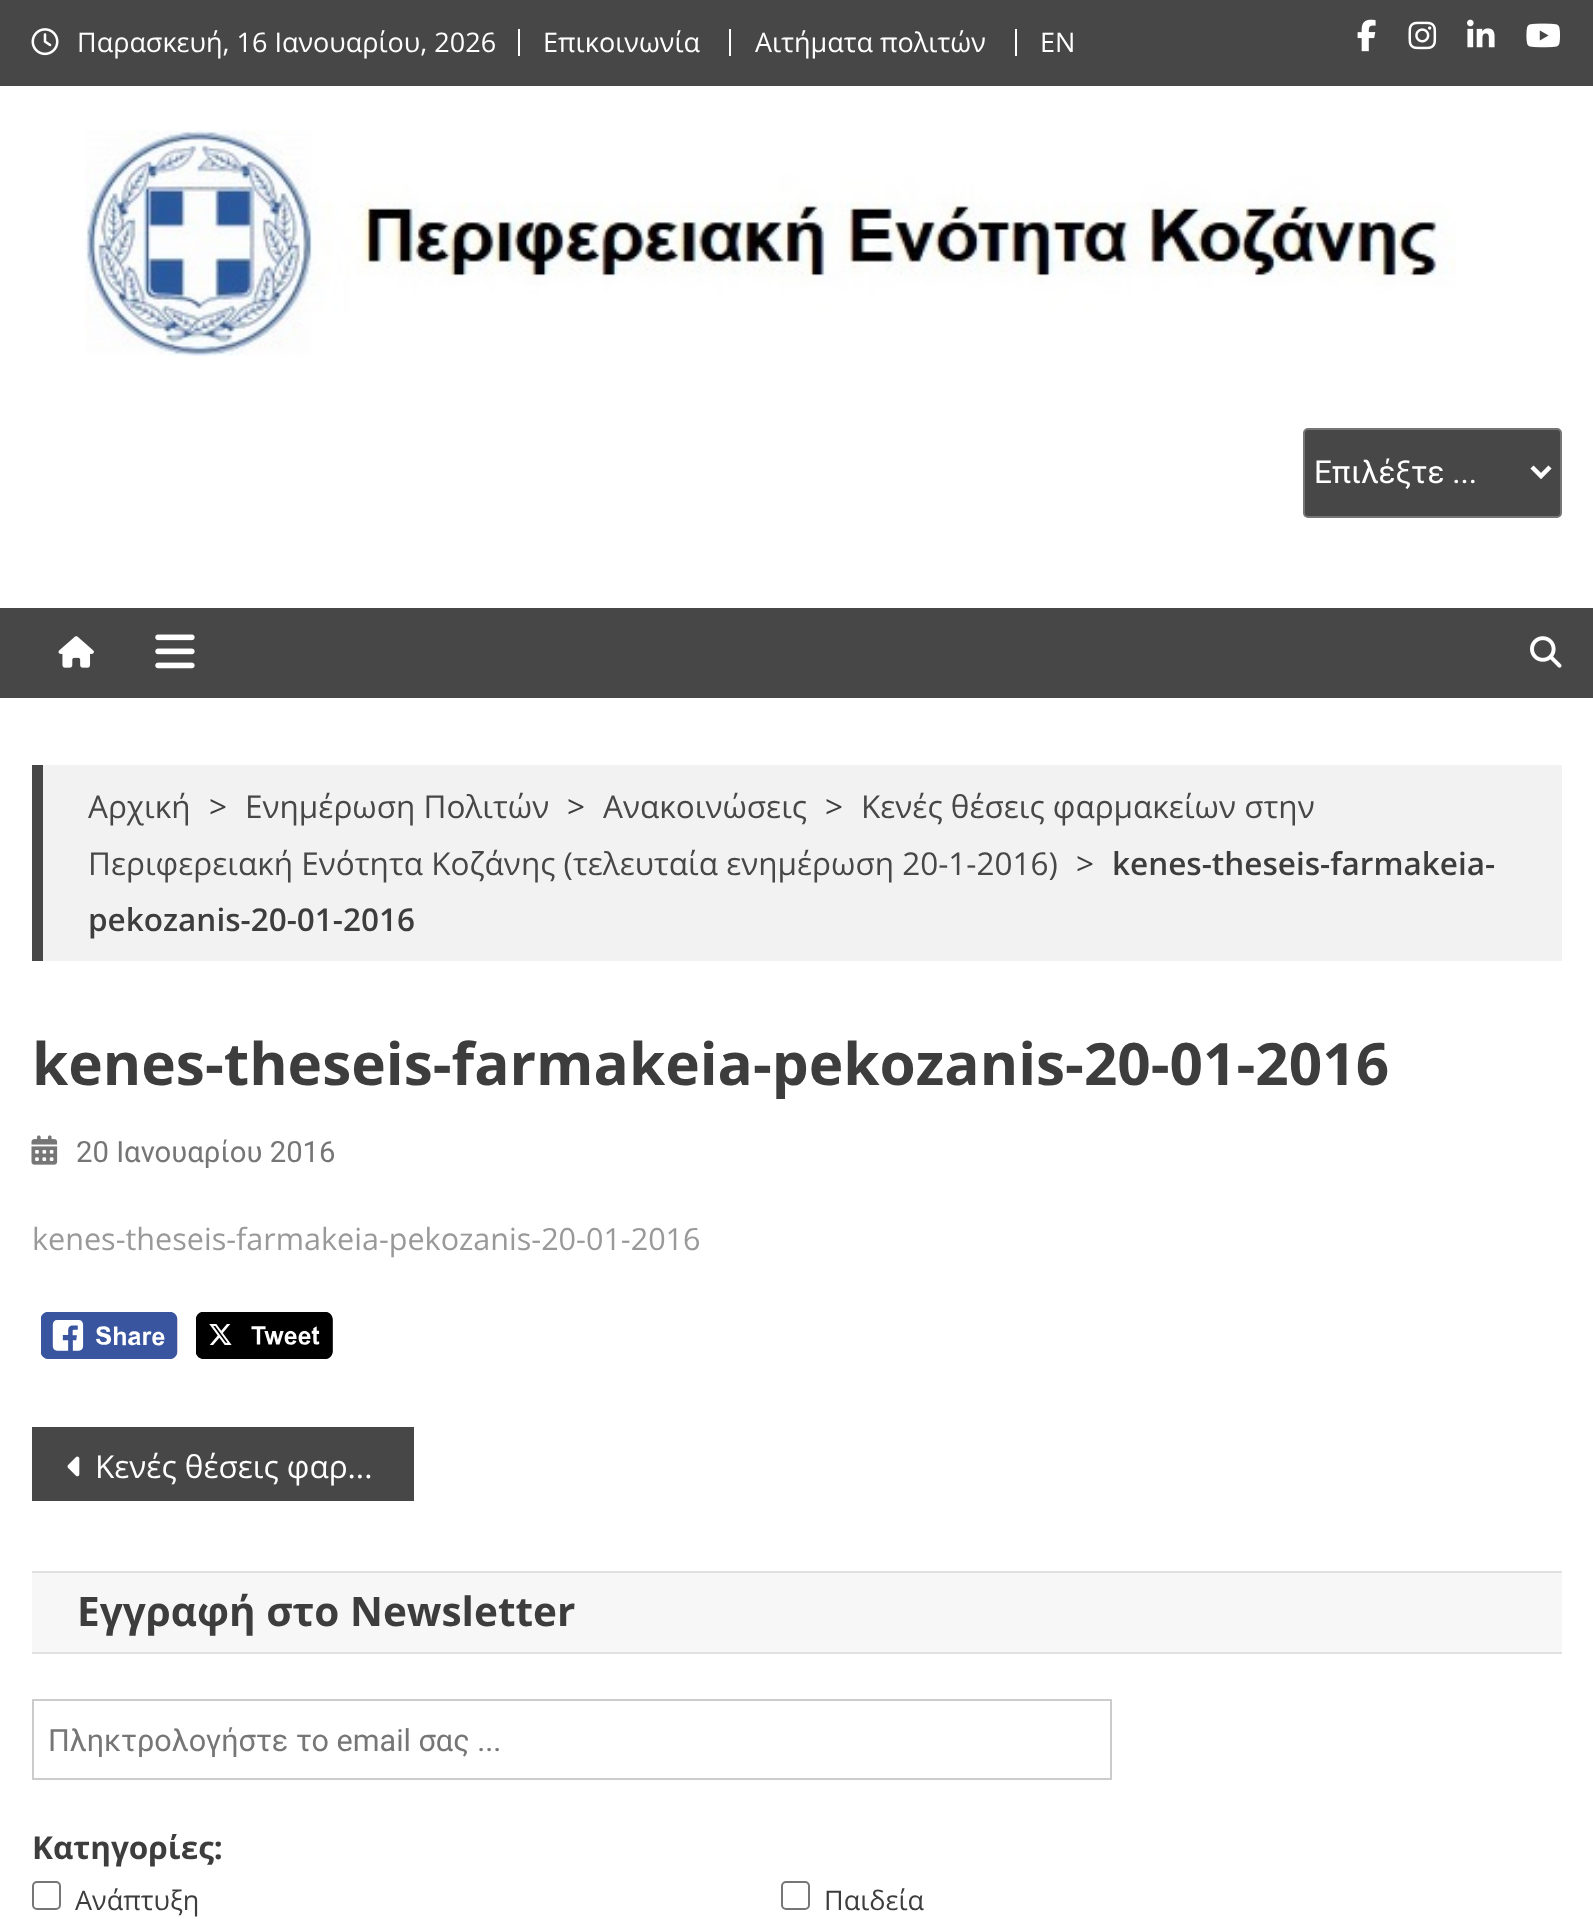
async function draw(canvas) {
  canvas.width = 1593
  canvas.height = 1922
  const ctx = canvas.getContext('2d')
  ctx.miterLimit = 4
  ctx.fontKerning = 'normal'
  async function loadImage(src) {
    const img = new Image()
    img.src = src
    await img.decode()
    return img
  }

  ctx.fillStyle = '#fff'
  ctx.fillRect(0, 0, 1593, 1922)
  ctx.fillStyle = '#474747'
  ctx.fillRect(0, 0, 1593, 86)
  ctx.drawImage(await loadImage('image0.png'), 31, 28, 28, 28)
  ctx.font = '27px Open Sans'
  ctx.fillStyle = '#fff'
  ctx.fillText('Παρασκευή, 16 Ιανουαρίου, 2026', 77, 52)
  ctx.fillRect(518, 29, 2, 27)
  ctx.fillText('Επικοινωνία', 543, 52)
  ctx.fillRect(729, 29, 2, 27)
  ctx.fillText('Αιτήματα πολιτών', 755, 52)
  ctx.fillRect(1015, 29, 2, 27)
  ctx.fillText('EN', 1040, 52)
  ctx.drawImage(await loadImage('image1.png'), 1357, 19, 19, 33)
  ctx.drawImage(await loadImage('image2.png'), 1408, 21, 29, 29)
  ctx.drawImage(await loadImage('image3.png'), 1467, 19, 28, 29)
  ctx.drawImage(await loadImage('image4.png'), 1526, 23, 34, 25)
  ctx.drawImage(await loadImage('image5.png'), 85, 130, 1371, 226)
  ctx.fillStyle = '#474747'
  ctx.beginPath()
  ctx.roundRect(1304, 429, 257, 88, 4)
  ctx.fill()
  ctx.strokeStyle = '#767676'
  ctx.lineWidth = 2
  ctx.stroke()
  ctx.beginPath()
  ctx.moveTo(1532, 467)
  ctx.lineTo(1541, 476)
  ctx.lineTo(1550, 467)
  ctx.strokeStyle = '#fff'
  ctx.lineWidth = 4.5
  ctx.stroke()
  ctx.font = '31.5px Roboto'
  ctx.fillStyle = '#fff'
  ctx.fillText('Επιλέξτε ...', 1314, 483)
  ctx.fillStyle = '#474747'
  ctx.fillRect(0, 608, 1593, 90)
  ctx.drawImage(await loadImage('image6.png'), 58, 636, 36, 32)
  ctx.drawImage(await loadImage('image7.png'), 155, 634, 40, 35)
  ctx.drawImage(await loadImage('image8.png'), 1530, 636, 32, 32)
  ctx.fillStyle = '#f2f2f2'
  ctx.fillRect(43, 765, 1519, 196)
  ctx.fillStyle = '#474747'
  ctx.fillRect(32, 765, 11, 196)
  ctx.font = '31.5px Open Sans'
  ctx.fillText('Αρχική', 88, 818)
  ctx.fillStyle = '#3d3d3d'
  ctx.fillText('>', 209, 818)
  ctx.fillStyle = '#474747'
  ctx.fillText('Ενημέρωση Πολιτών', 245, 818)
  ctx.fillStyle = '#3d3d3d'
  ctx.fillText('>', 567, 818)
  ctx.fillStyle = '#474747'
  ctx.fillText('Ανακοινώσεις', 603, 818)
  ctx.fillStyle = '#3d3d3d'
  ctx.fillText('>', 825, 818)
  ctx.fillStyle = '#474747'
  ctx.fillText('Κενές θέσεις φαρμακείων στην', 861, 818)
  ctx.fillText('Περιφερειακή Ενότητα Κοζάνης (τελευταία ενημέρωση 20-1-2016)', 88, 875)
  ctx.fillStyle = '#3d3d3d'
  ctx.fillText('>', 1076, 875)
  ctx.font = '600 31.5px Open Sans'
  ctx.fillText('kenes-theseis-farmakeia-', 1112, 875)
  ctx.fillText('pekozanis-20-01-2016', 88, 931)
  ctx.font = 'bold 58.5px Open Sans'
  ctx.fillText('kenes-theseis-farmakeia-pekozanis-20-01-2016', 32, 1085)
  ctx.drawImage(await loadImage('image9.png'), 31, 1135, 27, 30)
  ctx.font = '29.25px Roboto'
  ctx.fillStyle = '#767676'
  ctx.fillText('20 Ιανουαρίου 2016', 76, 1162)
  ctx.font = '30.55px Open Sans'
  ctx.fillStyle = '#999'
  ctx.fillText('kenes-theseis-farmakeia-pekozanis-20-01-2016', 32, 1250)
  ctx.drawImage(await loadImage('image10.png'), 41, 1312, 137, 47)
  ctx.drawImage(await loadImage('image11.png'), 196, 1312, 137, 47)
  ctx.fillStyle = '#474747'
  ctx.fillRect(32, 1427, 382, 74)
  ctx.drawImage(await loadImage('image12.png'), 67, 1456, 13, 21)
  ctx.font = '31.5px Open Sans'
  ctx.fillStyle = '#fff'
  ctx.fillText('Κενές θέσεις φαρ...', 95, 1478)
  ctx.fillStyle = '#f7f7f7'
  ctx.fillRect(32, 1573, 1530, 79)
  ctx.fillStyle = '#e1e1e1'
  ctx.fillRect(32, 1571, 1530, 2)
  ctx.fillRect(32, 1652, 1530, 2)
  ctx.font = 'bold 40.5px Open Sans'
  ctx.fillStyle = '#3d3d3d'
  ctx.fillText('Εγγραφή στο Newsletter', 77, 1626)
  ctx.strokeStyle = '#ccc'
  ctx.lineWidth = 2
  ctx.strokeRect(33, 1700, 1078, 79)
  ctx.save()
  ctx.beginPath()
  ctx.rect(47, 1721, 1049, 36)
  ctx.clip()
  ctx.font = '30.55px Roboto'
  ctx.fillStyle = '#767676'
  ctx.fillText('Πληκτρολογήστε το email σας ...', 48, 1751)
  ctx.restore()
  ctx.font = 'bold 31.5px Open Sans'
  ctx.fillText('Κατηγορίες:', 32, 1859)
  ctx.beginPath()
  ctx.roundRect(33, 1882, 27, 27, 4)
  ctx.strokeStyle = '#767676'
  ctx.stroke()
  ctx.font = '27px Open Sans'
  ctx.fillText('Ανάπτυξη', 75, 1910)
  ctx.beginPath()
  ctx.roundRect(782, 1882, 27, 27, 4)
  ctx.stroke()
  ctx.fillText('Παιδεία', 824, 1910)
}

draw(document.querySelector('canvas'))
